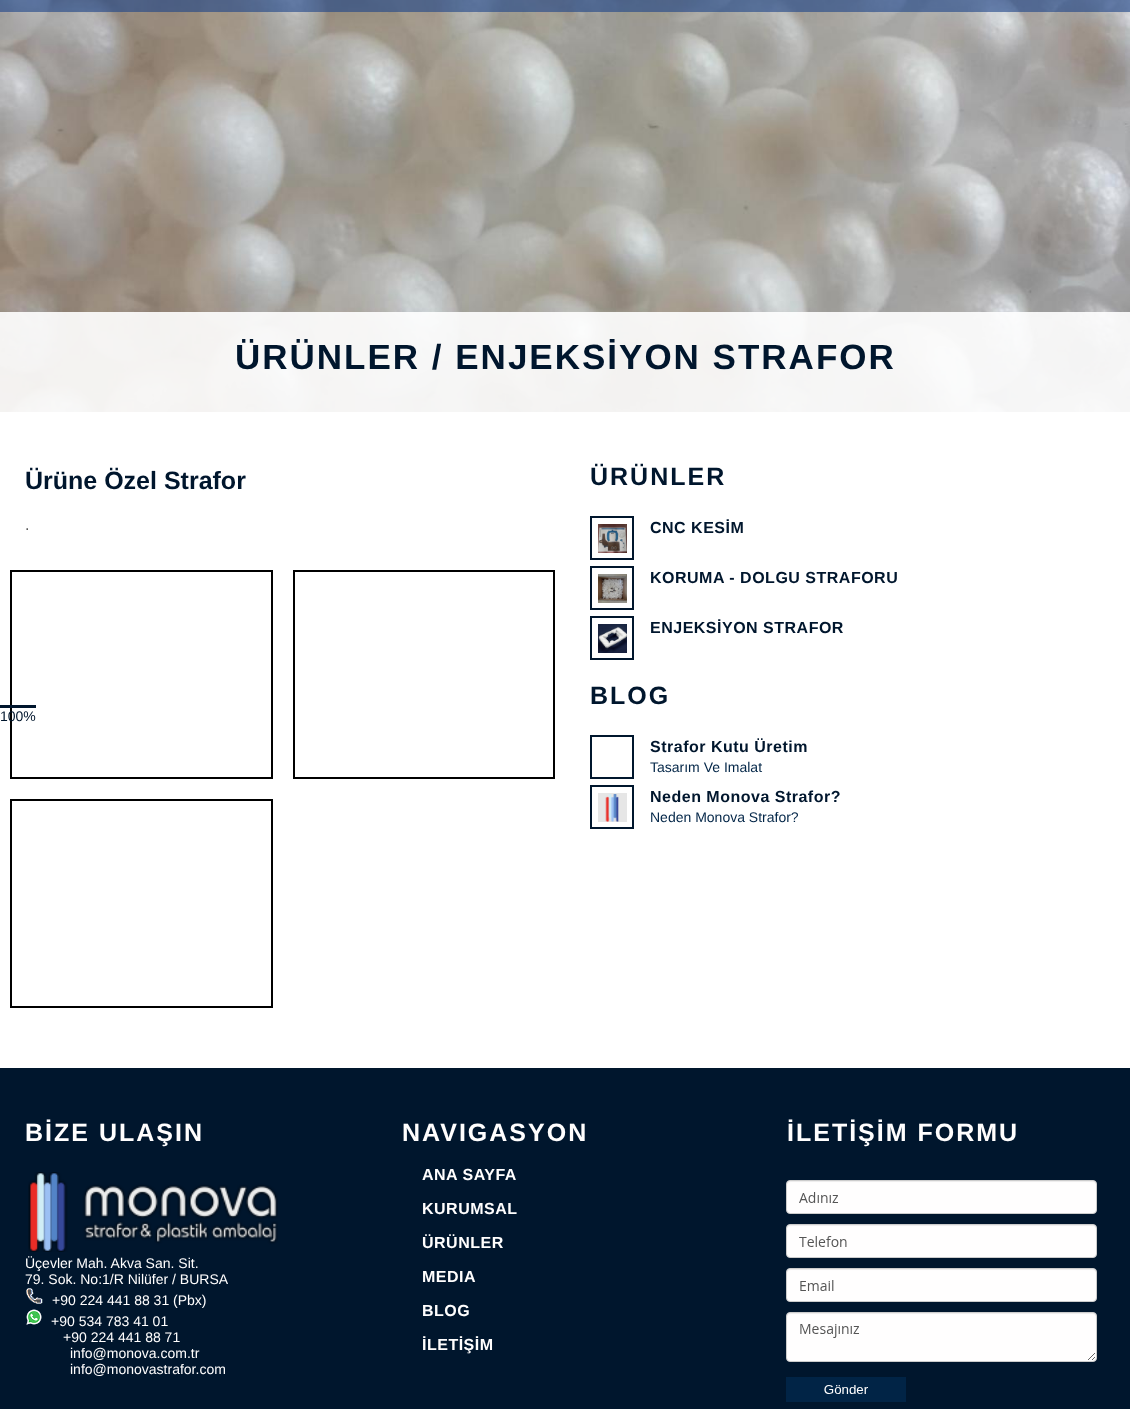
async function draw(canvas) {
  canvas.width = 1130
  canvas.height = 1409
  const ctx = canvas.getContext('2d')
  ctx.miterLimit = 4
  ctx.fontKerning = 'normal'
  async function loadImage(src) {
    const img = new Image()
    img.src = src
    await img.decode()
    return img
  }

  ctx.fillStyle = '#fff'
  ctx.fillRect(0, 0, 1130, 1409)
  ctx.drawImage(await loadImage('image0.png'), 0, 0, 1130, 412)
  ctx.fillStyle = '#1b438899'
  ctx.fillRect(0, 0, 1130, 12)
  ctx.strokeStyle = '#000'
  ctx.lineWidth = 2
  ctx.strokeRect(11, 571, 261, 207)
  ctx.fillStyle = '#00162d'
  ctx.fillRect(0, 705, 36, 3)
  ctx.font = '14px Liberation Sans'
  ctx.fillText('100%', 0, 721)
  ctx.fillStyle = '#ffffffe6'
  ctx.fillRect(0, 312, 1130, 100)
  ctx.letterSpacing = '2px'
  ctx.font = 'bold 35px Liberation Sans'
  ctx.fillStyle = '#00162d'
  ctx.fillText('ÜRÜNLER / ENJEKSİYON STRAFOR', 235, 369)
  ctx.letterSpacing = '0px'
  ctx.font = 'bold 25px Liberation Sans'
  ctx.fillText('Ürüne Özel Strafor', 25, 489)
  ctx.font = '16px Liberation Sans'
  ctx.fillStyle = '#555'
  ctx.fillText('.', 25, 530)
  ctx.strokeRect(294, 571, 260, 207)
  ctx.strokeRect(11, 800, 261, 207)
  ctx.letterSpacing = '2px'
  ctx.font = 'bold 25px Liberation Sans'
  ctx.fillStyle = '#00162d'
  ctx.fillText('ÜRÜNLER', 590, 485)
  ctx.drawImage(await loadImage('image1.png'), 598, 524, 29, 29)
  ctx.strokeStyle = '#00162d'
  ctx.strokeRect(591, 517, 42, 42)
  ctx.letterSpacing = '0.5px'
  ctx.font = 'bold 16px Liberation Sans'
  ctx.fillText('CNC KESİM', 650, 533)
  ctx.drawImage(await loadImage('image2.png'), 598, 574, 29, 29)
  ctx.strokeRect(591, 567, 42, 42)
  ctx.fillText('KORUMA - DOLGU STRAFORU', 650, 583)
  ctx.drawImage(await loadImage('image3.png'), 598, 624, 29, 29)
  ctx.strokeRect(591, 617, 42, 42)
  ctx.fillText('ENJEKSİYON STRAFOR', 650, 633)
  ctx.letterSpacing = '2px'
  ctx.font = 'bold 25px Liberation Sans'
  ctx.fillText('BLOG', 590, 704)
  ctx.strokeRect(591, 736, 42, 42)
  ctx.letterSpacing = '0.5px'
  ctx.font = 'bold 16px Liberation Sans'
  ctx.fillText('Strafor Kutu Üretim', 650, 752)
  ctx.letterSpacing = '0px'
  ctx.font = '14px Liberation Sans'
  ctx.fillStyle = '#012446'
  ctx.fillText('Tasarım Ve Imalat', 650, 772)
  ctx.drawImage(await loadImage('image4.png'), 598, 793, 29, 29)
  ctx.strokeRect(591, 786, 42, 42)
  ctx.letterSpacing = '0.5px'
  ctx.font = 'bold 16px Liberation Sans'
  ctx.fillStyle = '#00162d'
  ctx.fillText('Neden Monova Strafor?', 650, 802)
  ctx.letterSpacing = '0px'
  ctx.font = '14px Liberation Sans'
  ctx.fillStyle = '#012446'
  ctx.fillText('Neden Monova Strafor?', 650, 822)
  ctx.fillStyle = '#00162d'
  ctx.fillRect(0, 1068, 1130, 341)
  ctx.letterSpacing = '2px'
  ctx.font = 'bold 25px Liberation Sans'
  ctx.fillStyle = '#fffefe'
  ctx.fillText('BİZE ULAŞIN', 25, 1141)
  ctx.drawImage(await loadImage('image5.png'), 28, 1172, 250, 80)
  ctx.letterSpacing = '0px'
  ctx.font = '14px Liberation Sans'
  ctx.fillText('Üçevler Mah. Akva San. Sit.', 25, 1268)
  ctx.fillText('79. Sok. No:1/R Nilüfer / BURSA', 25, 1284)
  ctx.drawImage(await loadImage('image6.png'), 26, 1288, 17, 16)
  ctx.fillText('+90 224 441 88 31 (Pbx)', 52, 1305)
  ctx.drawImage(await loadImage('image7.png'), 26, 1309, 16, 16)
  ctx.fillText('+90 534 783 41 01', 51, 1326)
  ctx.fillText('+90 224 441 88 71', 63, 1342)
  ctx.fillText('info@monova.com.tr', 70, 1358)
  ctx.fillText('info@monovastrafor.com', 70, 1374)
  ctx.letterSpacing = '2px'
  ctx.font = 'bold 25px Liberation Sans'
  ctx.fillText('NAVIGASYON', 402, 1141)
  ctx.letterSpacing = '0.5px'
  ctx.font = 'bold 16px Liberation Sans'
  ctx.fillText('ANA SAYFA', 422, 1180)
  ctx.fillText('KURUMSAL', 422, 1214)
  ctx.fillText('ÜRÜNLER', 422, 1248)
  ctx.fillText('MEDIA', 422, 1282)
  ctx.fillText('BLOG', 422, 1316)
  ctx.fillText('İLETİŞİM', 422, 1350)
  ctx.letterSpacing = '2px'
  ctx.font = 'bold 25px Liberation Sans'
  ctx.fillText('İLETİŞİM FORMU', 787, 1141)
  ctx.drawImage(await loadImage('image8.png'), 786, 1180, 311, 222)
}

draw(document.querySelector('canvas'))
